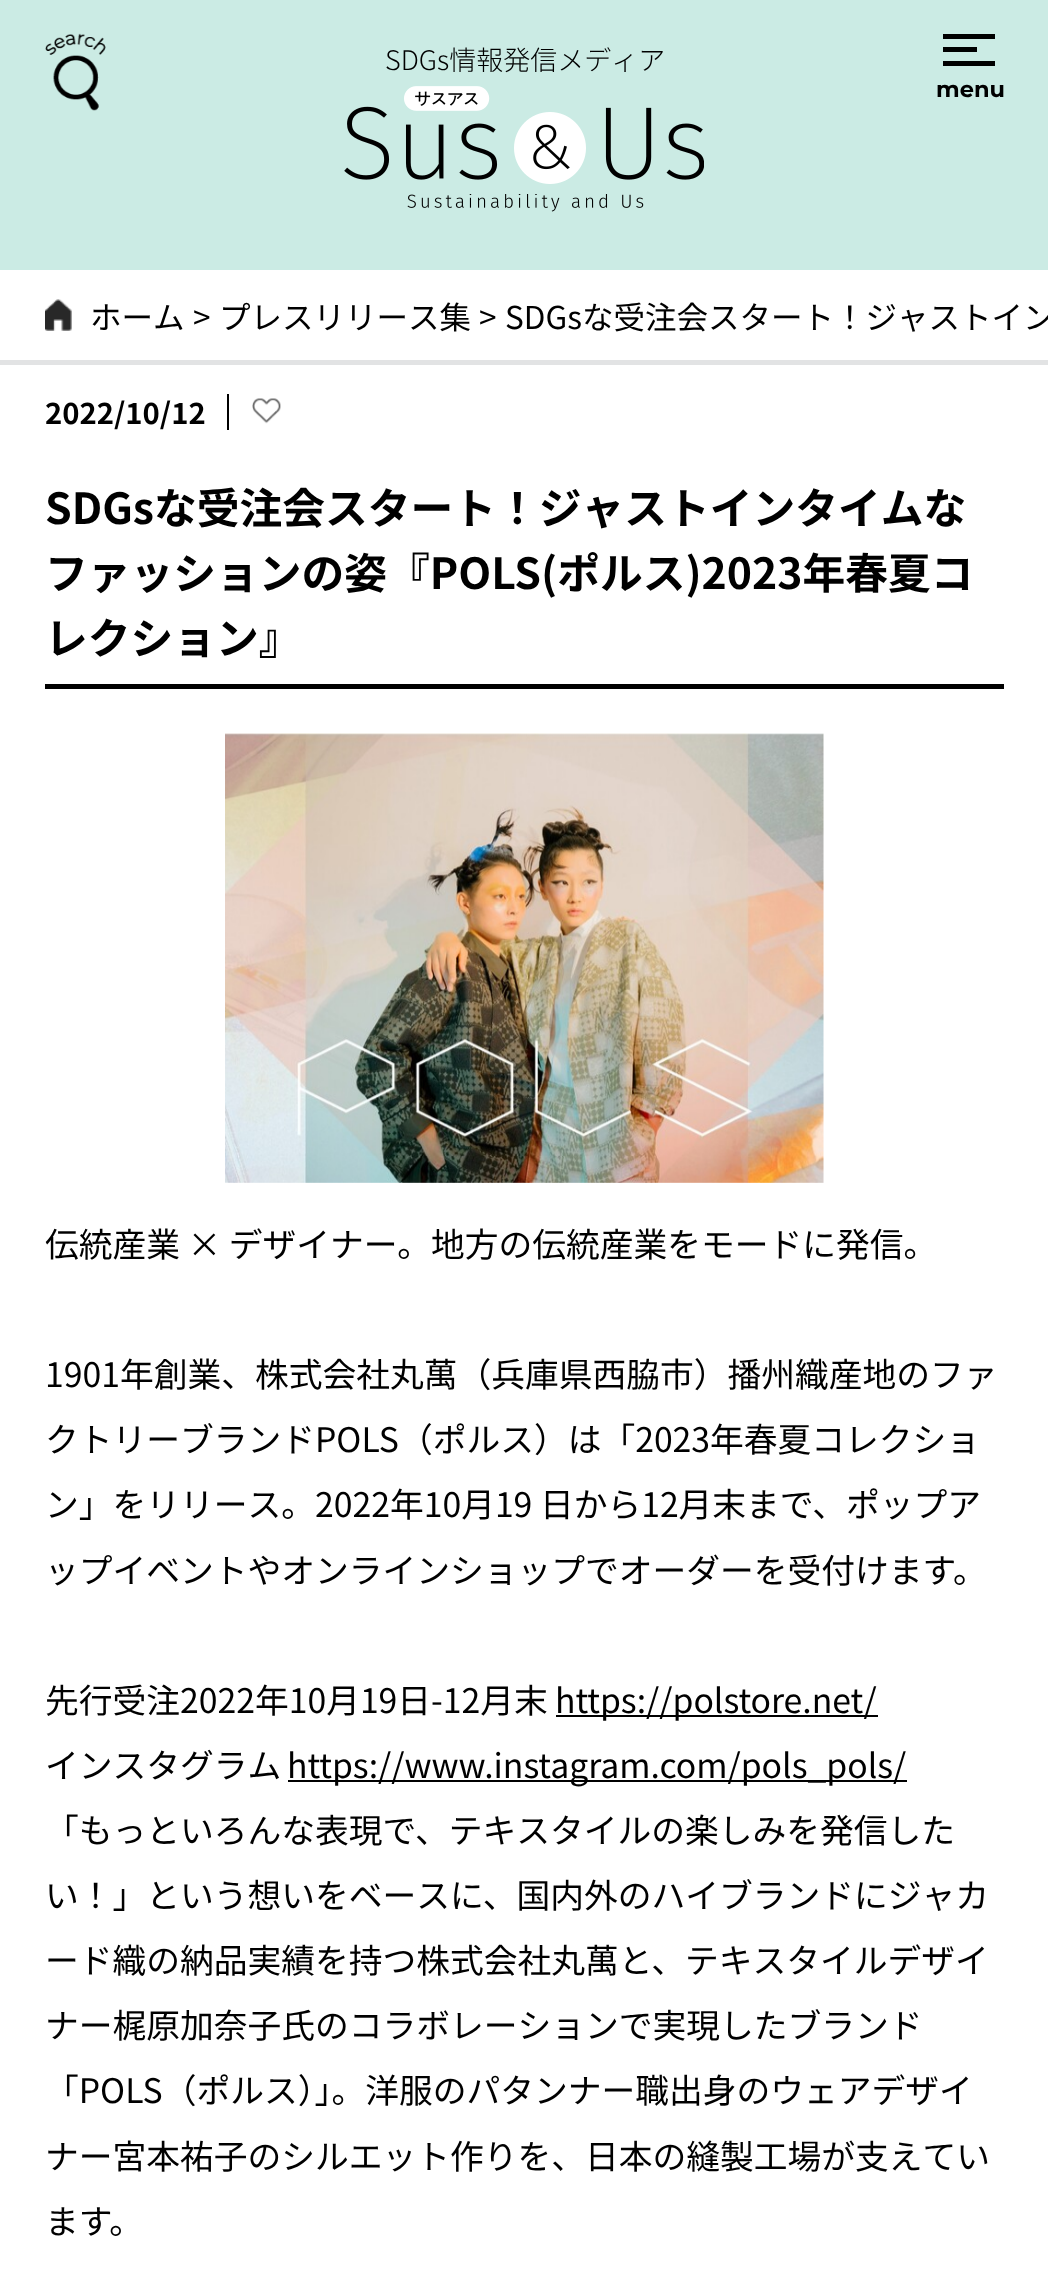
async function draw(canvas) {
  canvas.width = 1048
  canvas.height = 2274
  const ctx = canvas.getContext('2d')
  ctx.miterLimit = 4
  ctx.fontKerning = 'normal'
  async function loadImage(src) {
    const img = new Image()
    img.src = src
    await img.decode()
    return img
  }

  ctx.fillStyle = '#fff'
  ctx.fillRect(0, 0, 1048, 2274)
  ctx.fillStyle = '#cbebe4'
  ctx.fillRect(0, 0, 1048, 270)
  ctx.font = '300 27px Noto Sans JP'
  ctx.fillStyle = '#000'
  ctx.fillText('SDGs情報発信メディア', 385, 70)
  ctx.drawImage(await loadImage('image0.png'), 407, 194, 237, 18)
  ctx.drawImage(await loadImage('image1.png'), 344, 86, 360, 98)
  ctx.drawImage(await loadImage('image2.png'), 45, 33, 61, 78)
  ctx.fillRect(943, 34, 52, 5)
  ctx.fillRect(943, 47, 34, 5)
  ctx.fillRect(943, 61, 52, 5)
  ctx.font = 'bold 22.5px Montserrat'
  ctx.fillText('menu', 936, 97)
  ctx.fillStyle = '#e2e3e4'
  ctx.fillRect(0, 360, 1048, 5)
  ctx.drawImage(await loadImage('image3.png'), 45, 299, 27, 32)
  ctx.font = '31.5px Noto Sans JP'
  ctx.fillStyle = '#000'
  ctx.fillText('ホーム', 90, 329)
  ctx.fillText('>', 193, 329)
  ctx.fillText('プレスリリース集', 219, 329)
  ctx.fillText('>', 479, 329)
  ctx.fillText('SDGsな受注会スタート！ジャストイン', 505, 329)
  ctx.font = 'bold 29.25px Noto Sans JP'
  ctx.fillText('2022/10/12', 45, 424)
  ctx.fillRect(227, 394, 2, 36)
  ctx.drawImage(await loadImage('image4.png'), 252, 398, 29, 26)
  ctx.fillRect(45, 684, 959, 5)
  ctx.font = 'bold 42.75px Noto Sans JP'
  ctx.fillText('SDGsな受注会スタート！ジャストインタイムな', 45, 524)
  ctx.fillText('ファッションの姿『POLS(ポルス)2023年春夏コ', 45, 589)
  ctx.fillText('レクション』', 45, 654)
  ctx.drawImage(await loadImage('image5.png'), 225, 733, 599, 450)
  ctx.font = '33.75px Noto Sans JP'
  ctx.fillText('伝統産業 × デザイナー。地方の伝統産業をモードに発信。', 45, 1257)
  ctx.fillText('1901年創業、株式会社丸萬（兵庫県西脇市）播州織産地のファ', 45, 1387)
  ctx.fillText('クトリーブランドPOLS（ポルス）は「2023年春夏コレクショ', 45, 1452)
  ctx.fillText('ン」をリリース。2022年10月19 日から12月末まで、ポップア', 45, 1517)
  ctx.fillText('ップイベントやオンラインショップでオーダーを受付けます。', 45, 1583)
  ctx.fillText('先行受注2022年10月19日-12月末', 45, 1713)
  ctx.fillRect(556, 1715, 322, 2)
  ctx.fillText('https://polstore.net/', 555, 1713)
  ctx.fillText('インスタグラム', 45, 1778)
  ctx.fillRect(288, 1780, 619, 2)
  ctx.fillText('https://www.instagram.com/pols_pols/', 287, 1778)
  ctx.fillText('「もっといろんな表現で、テキスタイルの楽しみを発信した', 45, 1843)
  ctx.fillText('い！」という想いをベースに、国内外のハイブランドにジャカ', 45, 1908)
  ctx.fillText('ード織の納品実績を持つ株式会社丸萬と、テキスタイルデザイ', 45, 1973)
  ctx.fillText('ナー梶原加奈子氏のコラボレーションで実現したブランド', 45, 2038)
  ctx.fillText('「POLS（ポルス）」。洋服のパタンナー職出身のウェアデザイ', 45, 2103)
  ctx.fillText('ナー宮本祐子のシルエット作りを、日本の縫製工場が支えてい', 45, 2169)
  ctx.fillText('ます。', 45, 2234)
}

draw(document.querySelector('canvas'))
